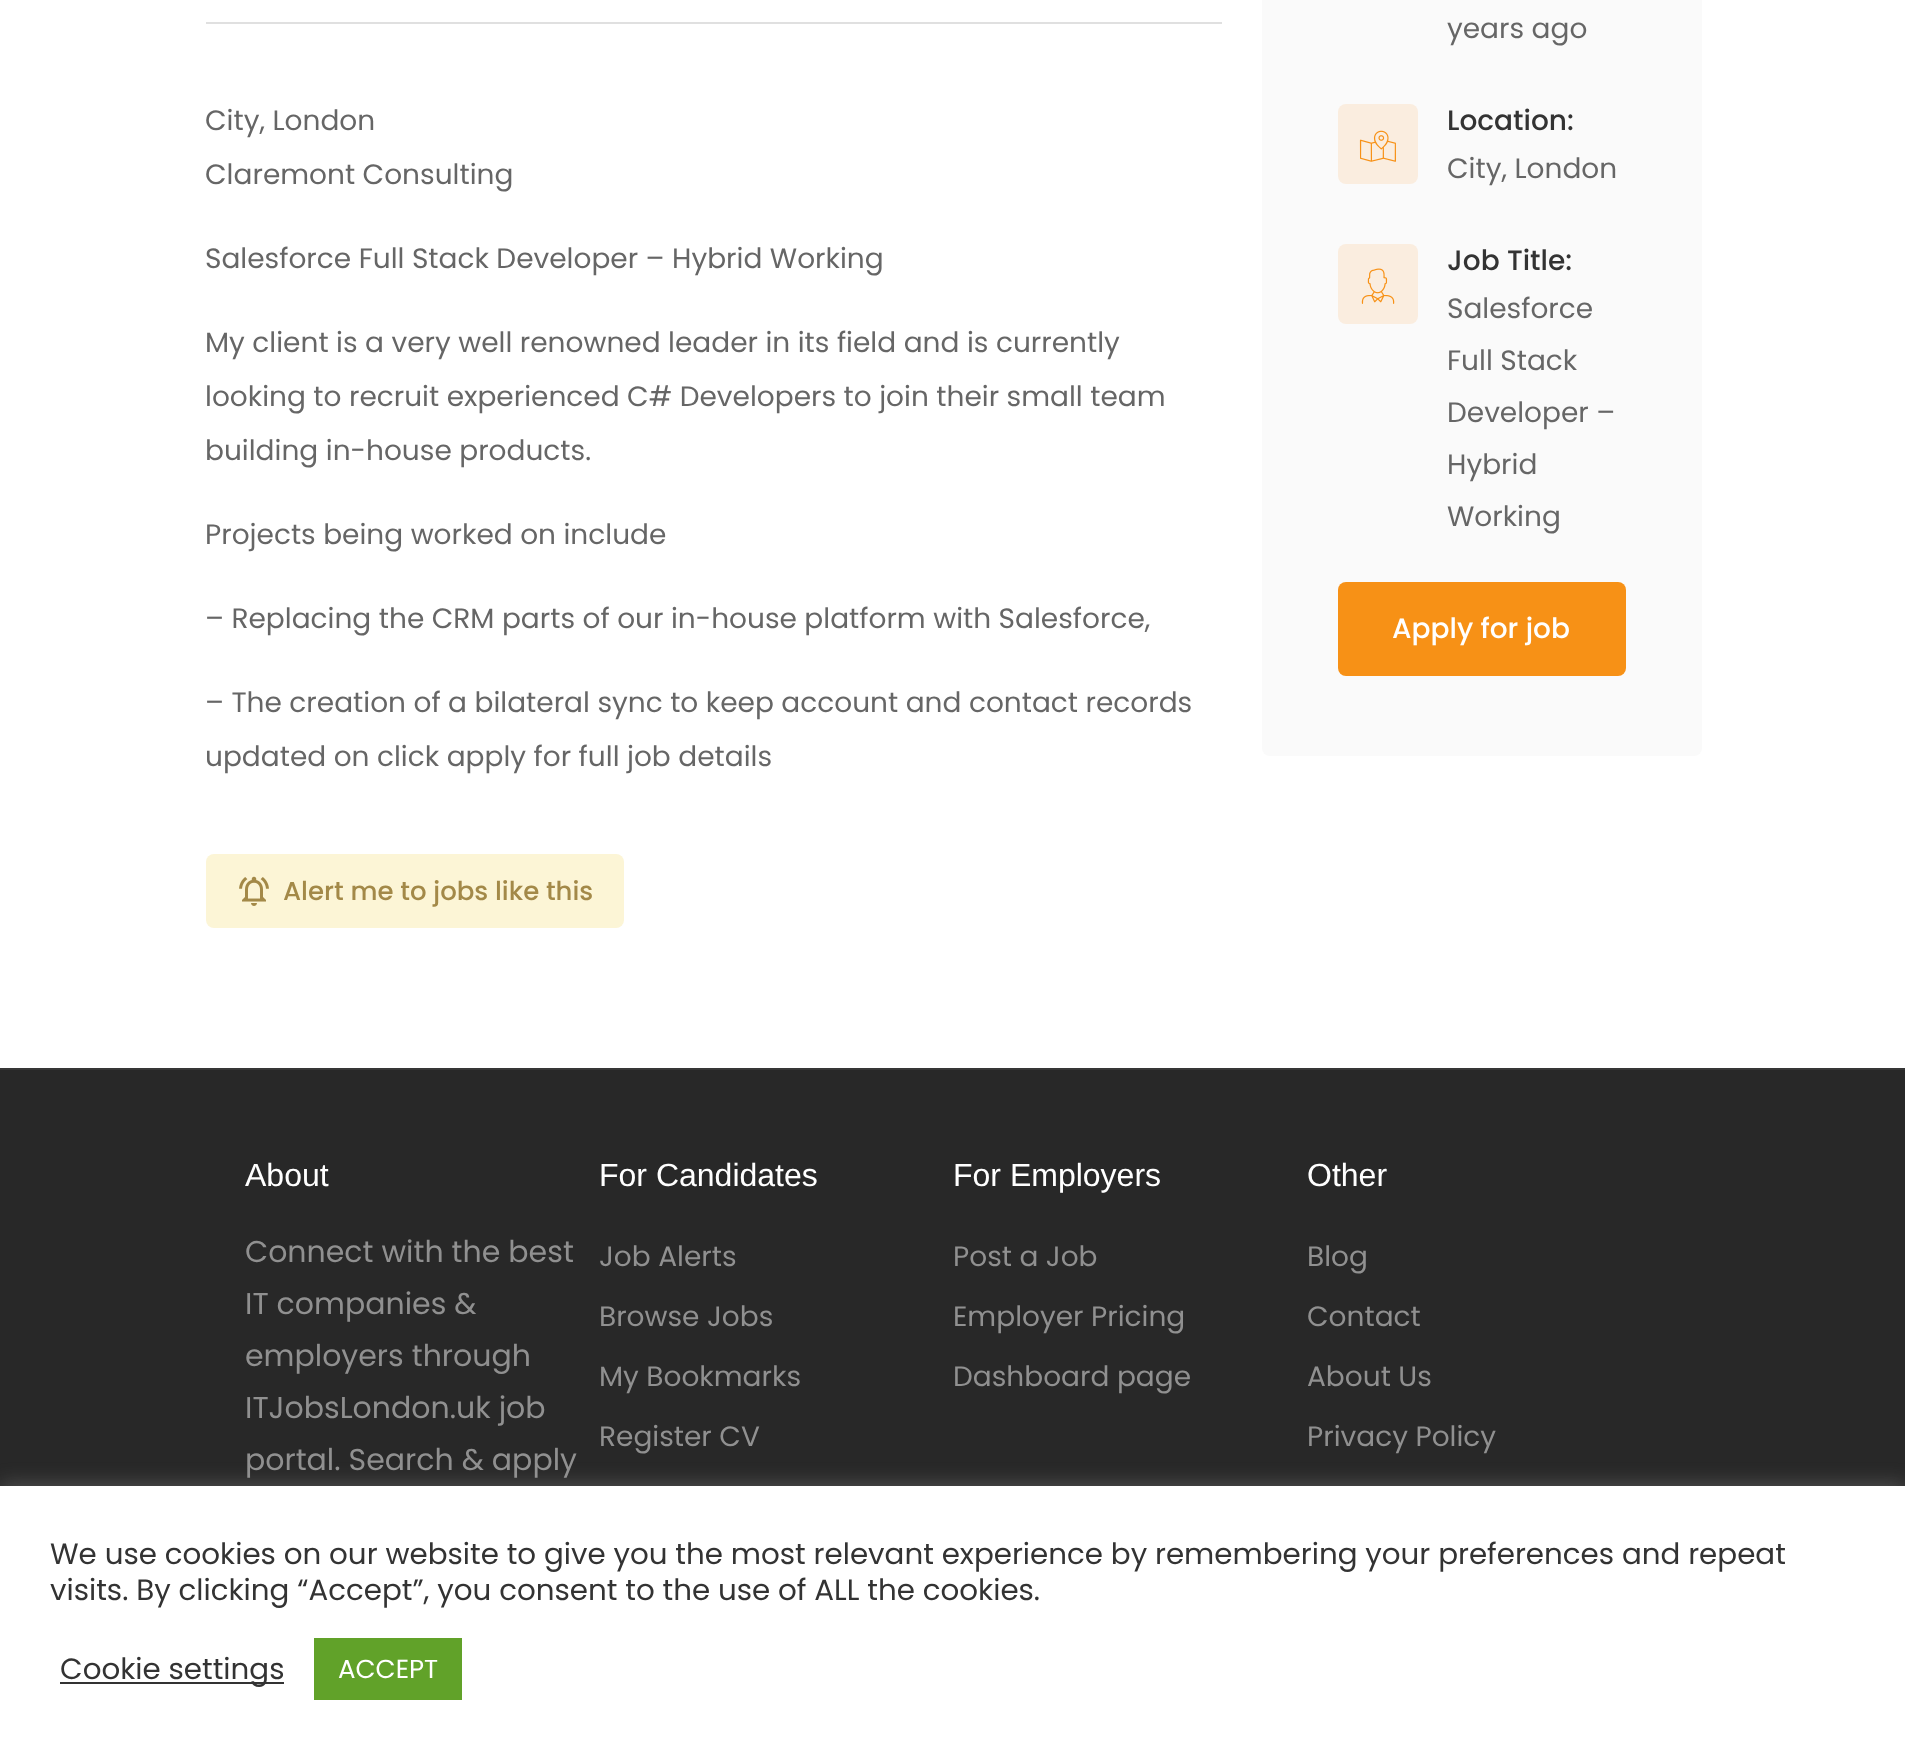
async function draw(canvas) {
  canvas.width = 1905
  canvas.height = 1760
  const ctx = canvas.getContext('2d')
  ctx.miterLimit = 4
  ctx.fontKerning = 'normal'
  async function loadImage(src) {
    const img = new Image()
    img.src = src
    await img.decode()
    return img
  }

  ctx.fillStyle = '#fff'
  ctx.fillRect(0, 0, 1905, 1760)
  ctx.fillStyle = '#e0e0e0'
  ctx.fillRect(206, 22, 1016, 2)
  ctx.font = '28px Poppins'
  ctx.fillStyle = '#666'
  ctx.fillText('City, London', 205, 130)
  ctx.fillText('Claremont Consulting', 205, 184)
  ctx.fillText('Salesforce Full Stack Developer – Hybrid Working', 205, 268)
  ctx.fillText('My client is a very well renowned leader in its field and is currently', 205, 352)
  ctx.fillText('looking to recruit experienced C# Developers to join their small team', 205, 406)
  ctx.fillText('building in-house products.', 205, 460)
  ctx.fillText('Projects being worked on include', 205, 544)
  ctx.fillText('– Replacing the CRM parts of our in-house platform with Salesforce,', 205, 628)
  ctx.fillText('– The creation of a bilateral sync to keep account and contact records', 205, 712)
  ctx.fillText('updated on click apply for full job details', 205, 766)
  ctx.fillStyle = '#fcf5d6'
  ctx.beginPath()
  ctx.roundRect(206, 854, 418, 74, 8)
  ctx.fill()
  ctx.drawImage(await loadImage('image0.png'), 239, 876, 30, 30)
  ctx.font = '500 26px Poppins'
  ctx.fillStyle = '#a38948'
  ctx.fillText('Alert me to jobs like this', 283, 900)
  ctx.fillStyle = '#fafafa'
  ctx.beginPath()
  ctx.roundRect(1262, -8, 440, 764, 8)
  ctx.fill()
  ctx.font = '28px Poppins'
  ctx.fillStyle = '#666'
  ctx.fillText('years ago', 1447, 38)
  ctx.fillStyle = '#faeddf'
  ctx.beginPath()
  ctx.roundRect(1338, 104, 80, 80, 8)
  ctx.fill()
  ctx.drawImage(await loadImage('image1.png'), 1359, 130, 37, 32)
  ctx.font = '500 28px Poppins'
  ctx.fillStyle = '#333'
  ctx.fillText('Location:', 1447, 130)
  ctx.font = '28px Poppins'
  ctx.fillStyle = '#666'
  ctx.fillText('City, London', 1447, 178)
  ctx.fillStyle = '#faeddf'
  ctx.beginPath()
  ctx.roundRect(1338, 244, 80, 80, 8)
  ctx.fill()
  ctx.drawImage(await loadImage('image2.png'), 1361, 268, 34, 36)
  ctx.font = '500 28px Poppins'
  ctx.fillStyle = '#333'
  ctx.fillText('Job Title:', 1447, 270)
  ctx.font = '28px Poppins'
  ctx.fillStyle = '#666'
  ctx.fillText('Salesforce', 1447, 318)
  ctx.fillText('Full Stack', 1447, 370)
  ctx.fillText('Developer –', 1447, 422)
  ctx.fillText('Hybrid', 1447, 474)
  ctx.fillText('Working', 1447, 526)
  ctx.fillStyle = '#f79116'
  ctx.beginPath()
  ctx.roundRect(1338, 582, 288, 94, 8)
  ctx.fill()
  ctx.font = '500 28px Poppins'
  ctx.fillStyle = '#fff'
  ctx.fillText('Apply for job', 1392, 638)
  ctx.fillStyle = '#282828'
  ctx.fillRect(0, 1070, 1905, 416)
  ctx.fillStyle = '#363636'
  ctx.fillRect(0, 1068, 1905, 2)
  ctx.font = '32px Liberation Sans'
  ctx.fillStyle = '#fff'
  ctx.fillText('About', 245, 1186)
  ctx.font = '30px Poppins'
  ctx.fillStyle = '#909090'
  ctx.fillText('Connect with the best', 245, 1262)
  ctx.fillText('IT companies &', 245, 1314)
  ctx.fillText('employers through', 245, 1366)
  ctx.fillText('ITJobsLondon.uk job', 245, 1418)
  ctx.fillText('portal. Search & apply', 245, 1470)
  ctx.font = '32px Liberation Sans'
  ctx.fillStyle = '#fff'
  ctx.fillText('For Candidates', 599, 1186)
  ctx.font = '28px Poppins'
  ctx.fillStyle = '#909090'
  ctx.fillText('Job Alerts', 599, 1266)
  ctx.fillText('Browse Jobs', 599, 1326)
  ctx.fillText('My Bookmarks', 599, 1386)
  ctx.fillText('Register CV', 599, 1446)
  ctx.font = '32px Liberation Sans'
  ctx.fillStyle = '#fff'
  ctx.fillText('For Employers', 953, 1186)
  ctx.font = '28px Poppins'
  ctx.fillStyle = '#909090'
  ctx.fillText('Post a Job', 953, 1266)
  ctx.fillText('Employer Pricing', 953, 1326)
  ctx.fillText('Dashboard page', 953, 1386)
  ctx.font = '32px Liberation Sans'
  ctx.fillStyle = '#fff'
  ctx.fillText('Other', 1307, 1186)
  ctx.font = '28px Poppins'
  ctx.fillStyle = '#909090'
  ctx.fillText('Blog', 1307, 1266)
  ctx.fillText('Contact', 1307, 1326)
  ctx.fillText('About Us', 1307, 1386)
  ctx.fillText('Privacy Policy', 1307, 1446)
  ctx.fillStyle = '#acabab4d'
  ctx.filter = 'blur(10px)'
  ctx.beginPath()
  ctx.rect(0, 1484, 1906, 274)
  ctx.fill()
  ctx.filter = 'none'
  ctx.fillStyle = '#fff'
  ctx.fillRect(0, 1486, 1905, 274)
  ctx.font = '29.33px Poppins'
  ctx.fillStyle = '#333'
  ctx.fillText('We use cookies on our website to give you the most relevant experience by remembering your preferences and repeat', 50, 1564)
  ctx.fillText('visits. By clicking “Accept”, you consent to the use of ALL the cookies.', 50, 1600)
  ctx.fillRect(60, 1682, 224, 2)
  ctx.fillText('Cookie settings', 60, 1679)
  ctx.fillStyle = '#61a229'
  ctx.fillRect(314, 1638, 148, 62)
  ctx.font = '26px Poppins'
  ctx.fillStyle = '#fff'
  ctx.fillText('ACCEPT', 338, 1678)
}

draw(document.querySelector('canvas'))
